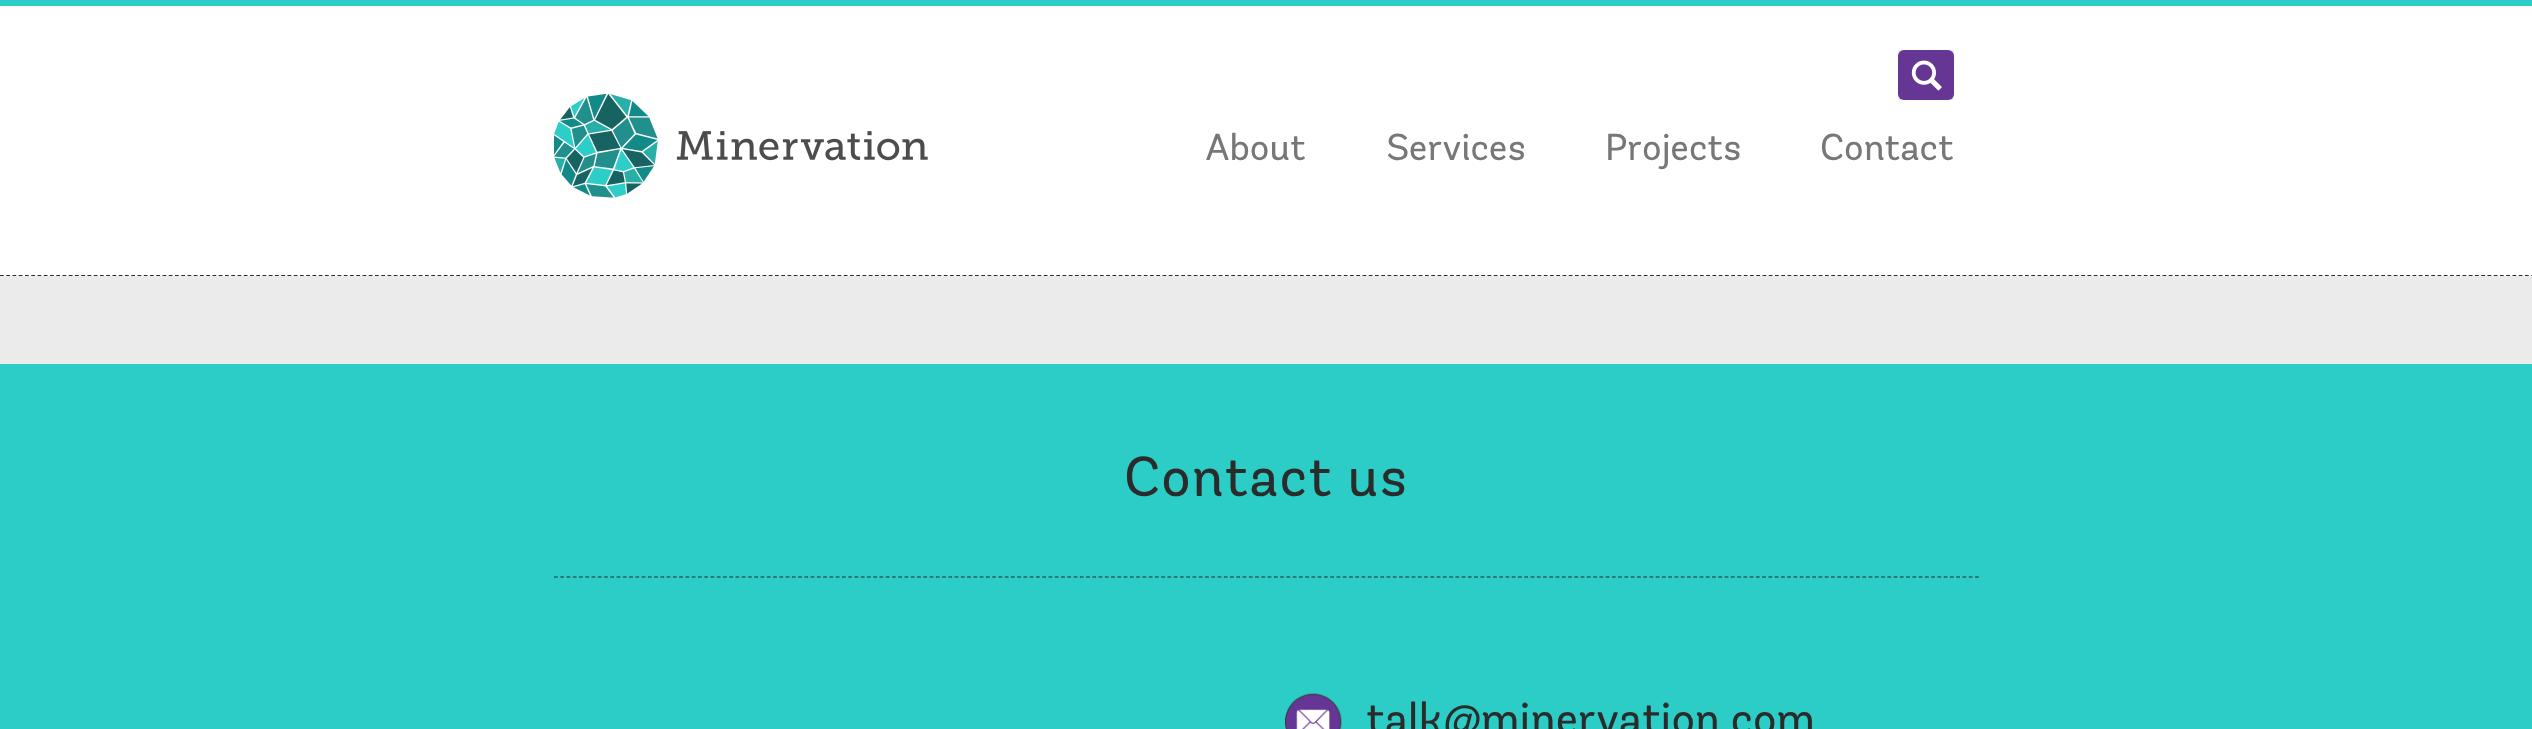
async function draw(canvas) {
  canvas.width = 2532
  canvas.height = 729
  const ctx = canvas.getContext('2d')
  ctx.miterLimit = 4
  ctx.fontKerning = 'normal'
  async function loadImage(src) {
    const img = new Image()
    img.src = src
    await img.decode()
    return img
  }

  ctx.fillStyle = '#fff'
  ctx.fillRect(0, 0, 2532, 729)
  ctx.fillStyle = '#2cccc7'
  ctx.fillRect(0, 0, 2532, 6)
  ctx.beginPath()
  ctx.moveTo(0, 275.5)
  ctx.lineTo(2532.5, 275.5)
  ctx.strokeStyle = '#2b2b2b'
  ctx.lineWidth = 1.2
  ctx.setLineDash([3.75, 2.5])
  ctx.stroke()
  ctx.drawImage(await loadImage('image0.png'), 554, 94, 374, 104)
  ctx.fillStyle = '#ebebeb'
  ctx.fillRect(1898, 50, 56, 50)
  ctx.fillStyle = '#653694'
  ctx.beginPath()
  ctx.roundRect(1898, 50, 56, 50, 6)
  ctx.fill()
  ctx.drawImage(await loadImage('image1.png'), 1911, 60, 31, 31)
  ctx.font = '37.5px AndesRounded'
  ctx.fillStyle = '#777'
  ctx.fillText('About', 1205, 160)
  ctx.fillText('Services', 1386, 160)
  ctx.fillText('Projects', 1605, 160)
  ctx.fillText('Contact', 1820, 160)
  ctx.fillStyle = '#ebebeb'
  ctx.fillRect(0, 276, 2532, 88)
  ctx.fillStyle = '#2cccc7'
  ctx.fillRect(0, 364, 2532, 365)
  ctx.beginPath()
  ctx.moveTo(554, 577)
  ctx.lineTo(1979, 577)
  ctx.setLineDash([3.75, 2.51])
  ctx.stroke()
  ctx.letterSpacing = '1.25px'
  ctx.font = '56.25px AndesRounded'
  ctx.fillStyle = '#2b2b2b'
  ctx.fillText('Contact us', 1124, 496)
  ctx.drawImage(await loadImage('image2.png'), 1285, 693, 57, 36)
  ctx.letterSpacing = '0px'
  ctx.font = '45px AndesRounded'
  ctx.fillText('talk@minervation.com', 1366, 734)
}

draw(document.querySelector('canvas'))
